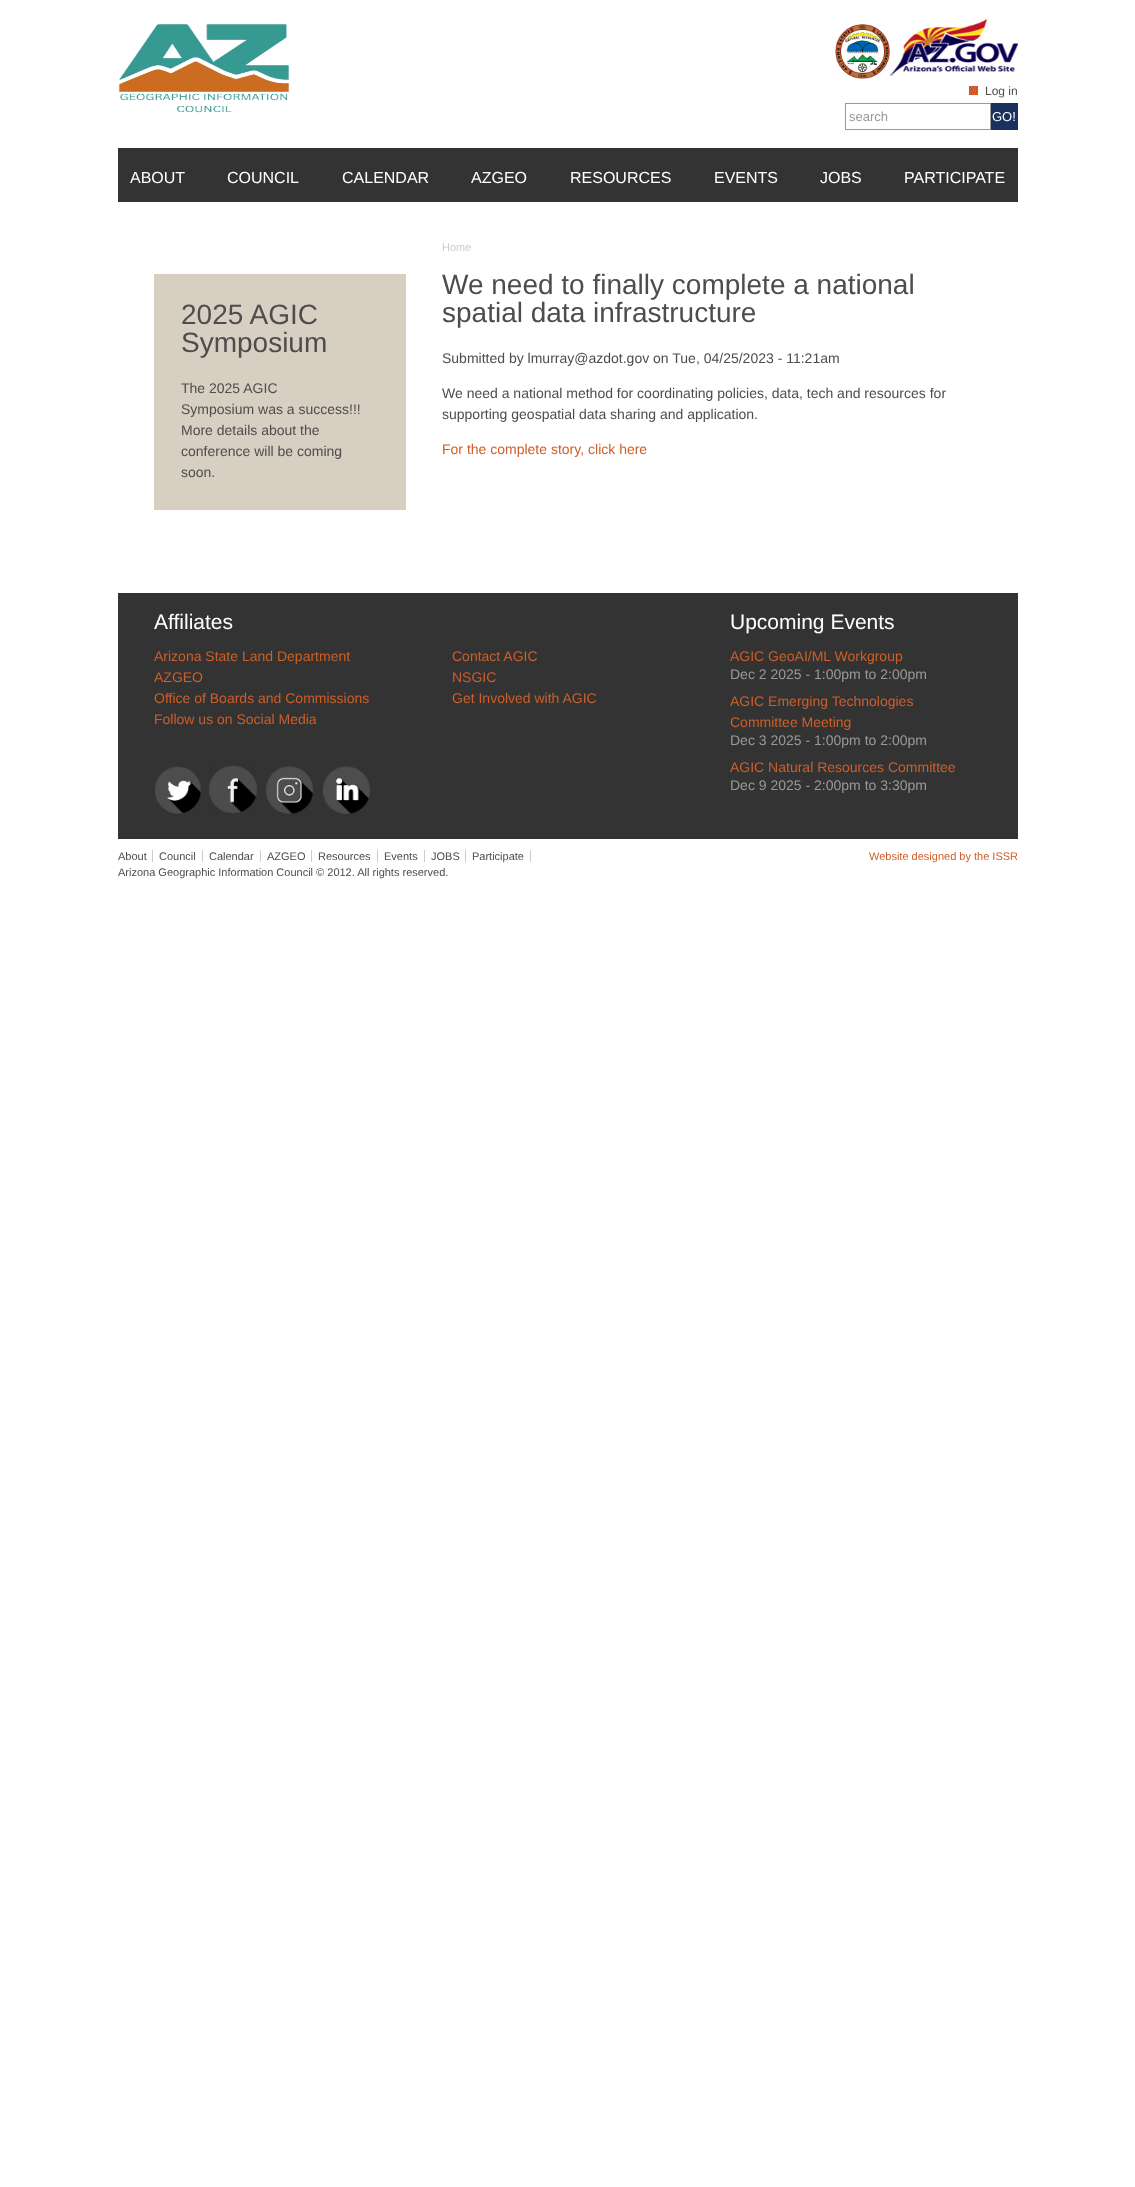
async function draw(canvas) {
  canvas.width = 1135
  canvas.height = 2187
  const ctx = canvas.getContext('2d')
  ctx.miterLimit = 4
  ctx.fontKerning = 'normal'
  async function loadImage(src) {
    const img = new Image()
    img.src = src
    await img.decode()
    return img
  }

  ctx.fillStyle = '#fff'
  ctx.fillRect(0, 0, 1135, 2187)
  ctx.drawImage(await loadImage('image0.png'), 118, 24, 172, 89)
  ctx.drawImage(await loadImage('image1.png'), 835, 24, 55, 55)
  ctx.drawImage(await loadImage('image2.png'), 890, 17, 128, 59)
  ctx.drawImage(await loadImage('image3.png'), 969, 86, 9, 9)
  ctx.font = '12px Liberation Sans'
  ctx.fillStyle = '#4d4d4d'
  ctx.fillText('Log in', 985, 95)
  ctx.strokeStyle = '#999'
  ctx.strokeRect(845.5, 103.5, 145, 26)
  ctx.font = '13px Liberation Sans'
  ctx.fillStyle = '#999'
  ctx.fillText('search', 849, 121)
  ctx.fillStyle = '#1b315d'
  ctx.fillRect(991, 103, 27, 27)
  ctx.fillStyle = '#fff'
  ctx.fillText('GO!', 992, 121)
  ctx.fillStyle = '#333'
  ctx.fillRect(118, 148, 900, 54)
  ctx.font = '16px Liberation Sans'
  ctx.fillStyle = '#fff'
  ctx.fillText('ABOUT', 130, 183)
  ctx.fillText('COUNCIL', 227, 183)
  ctx.fillText('CALENDAR', 342, 183)
  ctx.fillText('AZGEO', 471, 183)
  ctx.fillText('RESOURCES', 570, 183)
  ctx.fillText('EVENTS', 714, 183)
  ctx.fillText('JOBS', 820, 183)
  ctx.fillText('PARTICIPATE', 904, 183)
  ctx.fillStyle = '#d8cfc3'
  ctx.fillRect(154, 274, 252, 236)
  ctx.font = '28px Liberation Sans'
  ctx.fillStyle = '#4d4d4d'
  ctx.fillText('2025 AGIC', 181, 324)
  ctx.fillText('Symposium', 181, 352)
  ctx.font = '14px Liberation Sans'
  ctx.fillText('The 2025 AGIC', 181, 393)
  ctx.fillText('Symposium was a success!!!', 181, 414)
  ctx.fillText('More details about the', 181, 435)
  ctx.fillText('conference will be coming', 181, 456)
  ctx.fillText('soon.', 181, 477)
  ctx.font = '11px Liberation Sans'
  ctx.fillStyle = '#ccc'
  ctx.fillText('Home', 442, 251)
  ctx.font = '28px Liberation Sans'
  ctx.fillStyle = '#4d4d4d'
  ctx.fillText('We need to finally complete a national', 442, 294)
  ctx.fillText('spatial data infrastructure', 442, 322)
  ctx.font = '14px Liberation Sans'
  ctx.fillText('Submitted by lmurray@azdot.gov on Tue, 04/25/2023 - 11:21am', 442, 363)
  ctx.fillText('We need a national method for coordinating policies, data, tech and resources for', 442, 398)
  ctx.fillText('supporting geospatial data sharing and application.', 442, 419)
  ctx.fillStyle = '#cf5e28'
  ctx.fillText('For the complete story, click here', 442, 454)
  ctx.fillStyle = '#333'
  ctx.fillRect(118, 593, 900, 246)
  ctx.font = '21px Liberation Sans'
  ctx.fillStyle = '#fff'
  ctx.fillText('Affiliates', 154, 629)
  ctx.font = '14px Liberation Sans'
  ctx.fillStyle = '#cf5e28'
  ctx.fillText('Arizona State Land Department', 154, 661)
  ctx.fillText('Contact AGIC', 452, 661)
  ctx.fillText('AZGEO', 154, 682)
  ctx.fillText('NSGIC', 452, 682)
  ctx.fillText('Office of Boards and Commissions', 154, 703)
  ctx.fillText('Get Involved with AGIC', 452, 703)
  ctx.fillText('Follow us on Social Media', 154, 724)
  ctx.drawImage(await loadImage('image4.png'), 155, 766, 46, 48)
  ctx.drawImage(await loadImage('image5.png'), 209, 766, 48, 48)
  ctx.drawImage(await loadImage('image6.png'), 266, 766, 47, 48)
  ctx.drawImage(await loadImage('image7.png'), 322, 766, 48, 48)
  ctx.font = '21px Liberation Sans'
  ctx.fillStyle = '#fff'
  ctx.fillText('Upcoming Events', 730, 629)
  ctx.font = '14px Liberation Sans'
  ctx.fillStyle = '#cf5e28'
  ctx.fillText('AGIC GeoAI/ML Workgroup', 730, 661)
  ctx.fillStyle = '#999'
  ctx.fillText('Dec 2 2025 - 1:00pm to 2:00pm', 730, 679)
  ctx.fillStyle = '#cf5e28'
  ctx.fillText('AGIC Emerging Technologies', 730, 706)
  ctx.fillText('Committee Meeting', 730, 727)
  ctx.fillStyle = '#999'
  ctx.fillText('Dec 3 2025 - 1:00pm to 2:00pm', 730, 745)
  ctx.fillStyle = '#cf5e28'
  ctx.fillText('AGIC Natural Resources Committee', 730, 772)
  ctx.fillStyle = '#999'
  ctx.fillText('Dec 9 2025 - 2:00pm to 3:30pm', 730, 790)
  ctx.font = '11px Liberation Sans'
  ctx.fillStyle = '#4d4d4d'
  ctx.fillText('About', 118, 860)
  ctx.fillStyle = '#ccc'
  ctx.fillRect(152, 850, 1, 12)
  ctx.fillStyle = '#4d4d4d'
  ctx.fillText('Council', 159, 860)
  ctx.fillStyle = '#ccc'
  ctx.fillRect(202, 850, 1, 12)
  ctx.fillStyle = '#4d4d4d'
  ctx.fillText('Calendar', 209, 860)
  ctx.fillStyle = '#ccc'
  ctx.fillRect(260, 850, 1, 12)
  ctx.fillStyle = '#4d4d4d'
  ctx.fillText('AZGEO', 267, 860)
  ctx.fillStyle = '#ccc'
  ctx.fillRect(311, 850, 1, 12)
  ctx.fillStyle = '#4d4d4d'
  ctx.fillText('Resources', 318, 860)
  ctx.fillStyle = '#ccc'
  ctx.fillRect(377, 850, 1, 12)
  ctx.fillStyle = '#4d4d4d'
  ctx.fillText('Events', 384, 860)
  ctx.fillStyle = '#ccc'
  ctx.fillRect(424, 850, 1, 12)
  ctx.fillStyle = '#4d4d4d'
  ctx.fillText('JOBS', 431, 860)
  ctx.fillStyle = '#ccc'
  ctx.fillRect(465, 850, 1, 12)
  ctx.fillStyle = '#4d4d4d'
  ctx.fillText('Participate', 472, 860)
  ctx.fillStyle = '#ccc'
  ctx.fillRect(530, 850, 1, 12)
  ctx.fillStyle = '#4d4d4d'
  ctx.fillText('Arizona Geographic Information Council © 2012. All rights reserved.', 118, 876)
  ctx.fillStyle = '#cf5e28'
  ctx.fillText('Website designed by the ISSR', 869, 860)
}

draw(document.querySelector('canvas'))
